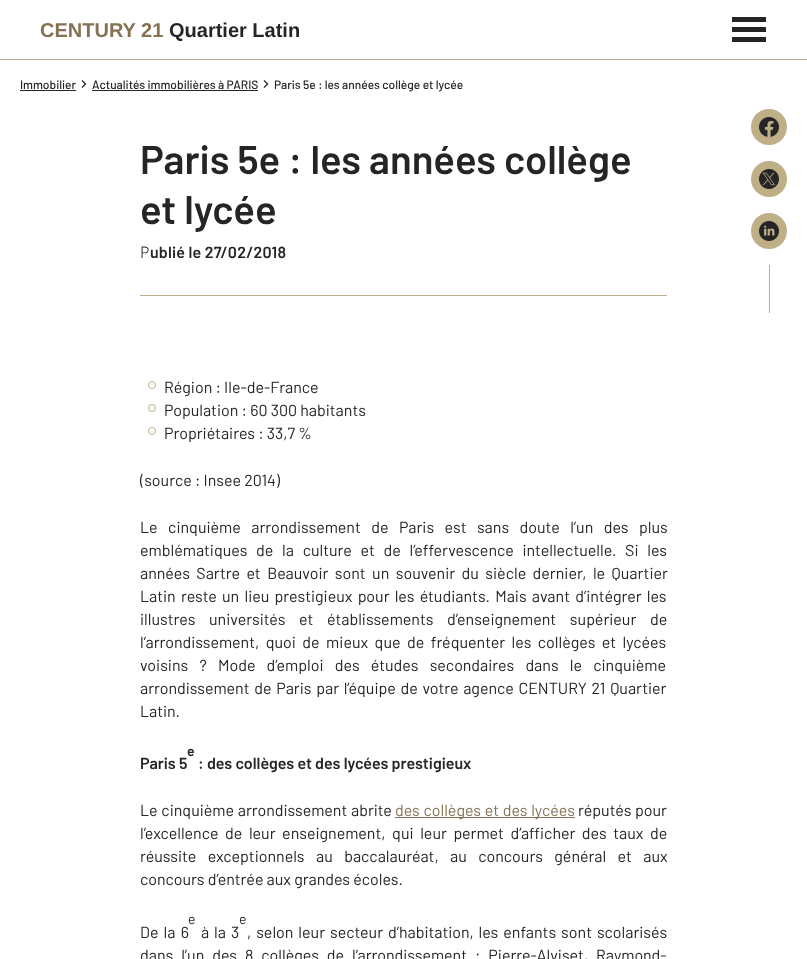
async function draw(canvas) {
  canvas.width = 807
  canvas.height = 959
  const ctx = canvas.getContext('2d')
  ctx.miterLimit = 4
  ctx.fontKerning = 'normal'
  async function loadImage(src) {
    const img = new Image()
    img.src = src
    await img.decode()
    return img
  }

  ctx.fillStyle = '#fff'
  ctx.fillRect(0, 0, 807, 959)
  ctx.fillStyle = '#beaf87'
  ctx.fillRect(0, 59, 807, 1)
  ctx.font = 'bold 20px Liberation Sans'
  ctx.fillStyle = '#847252'
  ctx.fillText('CENTURY 21', 40, 37)
  ctx.fillStyle = '#252526'
  ctx.fillText('Quartier Latin', 169, 37)
  ctx.fillRect(732, 37, 34, 5)
  ctx.fillRect(732, 17, 34, 5)
  ctx.fillRect(732, 27, 34, 5)
  ctx.font = '500 12px Barlow'
  ctx.fillText('Immobilier', 20, 89)
  ctx.fillRect(20, 90, 56, 1)
  ctx.drawImage(await loadImage('image0.png'), 81, 80, 6, 8)
  ctx.fillText('Actualités immobilières à PARIS', 92, 89)
  ctx.fillRect(92, 90, 166, 1)
  ctx.drawImage(await loadImage('image0.png'), 263, 80, 6, 8)
  ctx.fillText('Paris 5e : les années collège et lycée', 274, 89)
  ctx.font = '600 40px Barlow'
  ctx.fillText('Paris 5e : les années collège', 140, 174)
  ctx.fillText('et lycée', 140, 224)
  ctx.letterSpacing = '0.2px'
  ctx.font = '300 16px Noto Sans'
  ctx.fillText('P', 140, 258)
  ctx.font = '600 16px Barlow'
  ctx.fillText('ublié le 27/02/2018', 150, 258)
  ctx.fillStyle = '#beaf87'
  ctx.fillRect(140, 295, 527, 1)
  ctx.beginPath()
  ctx.arc(152, 385, 3.5, 0, 2 * Math.PI)
  ctx.strokeStyle = '#beaf87'
  ctx.stroke()
  ctx.letterSpacing = '0px'
  ctx.font = '16px Barlow'
  ctx.fillStyle = '#252526'
  ctx.fillText('Région : Ile-de-France', 164, 393)
  ctx.beginPath()
  ctx.arc(152, 408, 3.5, 0, 2 * Math.PI)
  ctx.stroke()
  ctx.fillText('Population : 60 300 habitants', 164, 416)
  ctx.beginPath()
  ctx.arc(152, 431, 3.5, 0, 2 * Math.PI)
  ctx.stroke()
  ctx.fillText('Propriétaires : 33,7 %', 164, 439)
  ctx.fillText('(source : Insee 2014)', 140, 486)
  ctx.wordSpacing = '7.25px'
  ctx.fillText('Le cinquième arrondissement de Paris est sans doute l’un des plus', 140, 533)
  ctx.wordSpacing = '5.5px'
  ctx.fillText('emblématiques de la culture et de l’effervescence intellectuelle. Si les', 140, 556)
  ctx.wordSpacing = '3.25px'
  ctx.fillText('années Sartre et Beauvoir sont un souvenir du siècle dernier, le Quartier', 140, 579)
  ctx.wordSpacing = '2px'
  ctx.fillText('Latin reste un lieu prestigieux pour les étudiants. Mais avant d’intégrer les', 140, 602)
  ctx.wordSpacing = '10.5px'
  ctx.fillText('illustres universités et établissements d’enseignement supérieur de', 140, 625)
  ctx.wordSpacing = '3.25px'
  ctx.fillText('l’arrondissement, quoi de mieux que de fréquenter les collèges et lycées', 140, 648)
  ctx.wordSpacing = '8px'
  ctx.fillText('voisins ? Mode d’emploi des études secondaires dans le cinquième', 140, 671)
  ctx.wordSpacing = '1.5px'
  ctx.fillText('arrondissement de Paris par l’équipe de votre agence CENTURY 21 Quartier', 140, 694)
  ctx.wordSpacing = '0px'
  ctx.fillText('Latin.', 140, 717)
  ctx.font = '600 14px Barlow'
  ctx.fillText('e', 187, 756)
  ctx.font = '600 16px Barlow'
  ctx.fillText('Paris 5', 140, 769)
  ctx.fillText(': des collèges et des lycées prestigieux', 198, 769)
  ctx.wordSpacing = '0.5px'
  ctx.font = '16px Barlow'
  ctx.fillText('Le cinquième arrondissement abrite', 140, 816)
  ctx.fillStyle = '#847252'
  ctx.fillRect(395, 817, 180, 1)
  ctx.fillText('des collèges et des lycées', 395, 816)
  ctx.fillStyle = '#252526'
  ctx.fillText('réputés pour', 578, 816)
  ctx.wordSpacing = '3.4px'
  ctx.fillText('l’excellence de leur enseignement, qui leur permet d’afficher des taux de', 140, 839)
  ctx.wordSpacing = '8.25px'
  ctx.fillText('réussite exceptionnels au baccalauréat, au concours général et aux', 140, 862)
  ctx.wordSpacing = '0px'
  ctx.fillText('concours d’entrée aux grandes écoles.', 140, 885)
  ctx.font = '14px Barlow'
  ctx.fillText('e', 188, 924)
  ctx.fillText('e', 239, 924)
  ctx.wordSpacing = '2px'
  ctx.font = '16px Barlow'
  ctx.fillText('De la 6', 140, 938)
  ctx.wordSpacing = '1.75px'
  ctx.fillText('à la 3', 201, 938)
  ctx.fillText(', selon leur secteur d’habitation, les enfants sont scolarisés', 247, 938)
  ctx.wordSpacing = '4.75px'
  ctx.fillText('dans l’un des 8 collèges de l’arrondissement : Pierre-Alviset, Raymond-', 140, 961)
  ctx.fillStyle = '#beaf87'
  ctx.beginPath()
  ctx.arc(769, 127, 18, 0, 2 * Math.PI)
  ctx.fill()
  ctx.drawImage(await loadImage('image1.png'), 759, 117, 20, 20)
  ctx.beginPath()
  ctx.arc(769, 179, 18, 0, 2 * Math.PI)
  ctx.fill()
  ctx.drawImage(await loadImage('image2.png'), 759, 169, 20, 20)
  ctx.beginPath()
  ctx.arc(769, 231, 18, 0, 2 * Math.PI)
  ctx.fill()
  ctx.drawImage(await loadImage('image3.png'), 759, 221, 20, 20)
  ctx.fillRect(769, 265, 1, 48)
}

draw(document.querySelector('canvas'))
